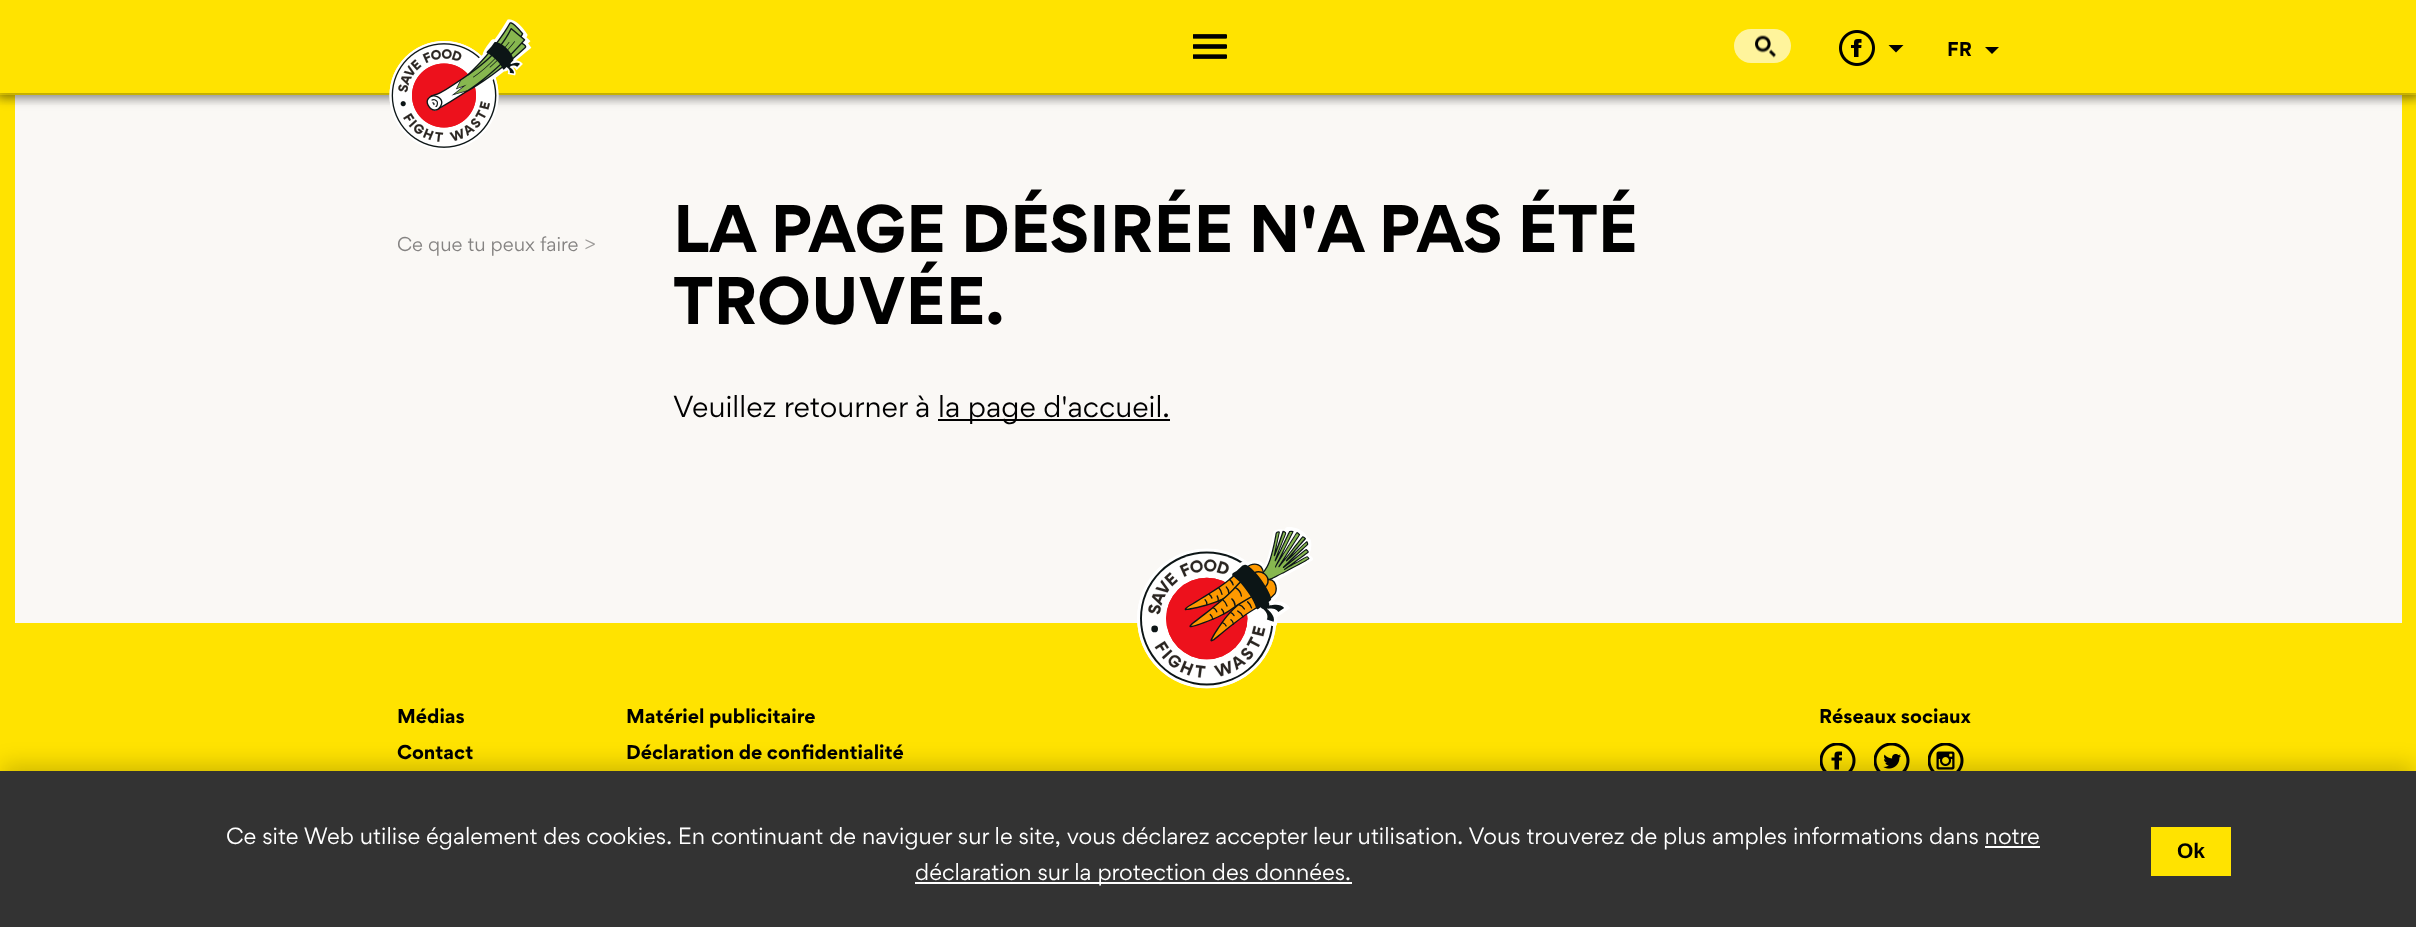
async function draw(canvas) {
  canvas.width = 2416
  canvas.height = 927
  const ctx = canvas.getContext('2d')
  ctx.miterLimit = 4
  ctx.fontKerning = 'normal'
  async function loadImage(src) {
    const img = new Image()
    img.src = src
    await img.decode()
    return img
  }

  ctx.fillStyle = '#ffe300'
  ctx.fillRect(0, 0, 2416, 927)
  ctx.fillStyle = '#faf8f5'
  ctx.fillRect(15, 95, 2387, 528)
  ctx.fillStyle = '#0000004d'
  ctx.filter = 'blur(6px)'
  ctx.beginPath()
  ctx.rect(-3, -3, 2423, 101)
  ctx.fill()
  ctx.filter = 'none'
  ctx.fillStyle = '#ffe300'
  ctx.fillRect(0, 0, 2416, 93)
  ctx.fillStyle = '#f5da00'
  ctx.fillRect(0, 93, 2416, 2)
  ctx.save()
  ctx.beginPath()
  ctx.rect(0, 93, 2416, 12)
  ctx.clip()
  ctx.fillStyle = '#0000004d'
  ctx.filter = 'blur(6px)'
  ctx.beginPath()
  ctx.rect(-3, -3, 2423, 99)
  ctx.fill()
  ctx.filter = 'none'
  ctx.restore()
  ctx.drawImage(await loadImage('image0.png'), 389, 19, 143, 131)
  ctx.drawImage(await loadImage('image1.png'), 1193, 34, 34, 25)
  ctx.fillStyle = '#fff49c'
  ctx.beginPath()
  ctx.roundRect(1734, 29, 57, 34, 17)
  ctx.fill()
  ctx.drawImage(await loadImage('image2.png'), 1755, 35, 21, 23)
  ctx.drawImage(await loadImage('image3.png'), 1839, 30, 36, 36)
  ctx.fillStyle = '#000'
  ctx.beginPath()
  ctx.moveTo(1888.5, 45)
  ctx.lineTo(1896, 52.5)
  ctx.lineTo(1903.5, 45)
  ctx.closePath()
  ctx.fill()
  ctx.font = 'bold 18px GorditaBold'
  ctx.fillText('FR', 1947, 56)
  ctx.save()
  ctx.beginPath()
  ctx.rect(1985, 47, 15, 7)
  ctx.clip()
  ctx.beginPath()
  ctx.moveTo(1984.5, 46.5)
  ctx.lineTo(1992, 54)
  ctx.lineTo(1999.5, 46.5)
  ctx.closePath()
  ctx.fill()
  ctx.restore()
  ctx.font = '18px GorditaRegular'
  ctx.fillStyle = '#858382'
  ctx.fillText('Ce que tu peux faire', 397, 251)
  ctx.fillStyle = '#9e9c9a'
  ctx.fillText('>', 584, 251)
  ctx.font = 'bold 60px GorditaBold'
  ctx.fillStyle = '#000'
  ctx.fillText('LA PAGE DÉSIRÉE N\'A PAS ÉTÉ', 673, 252)
  ctx.fillText('TROUVÉE.', 673, 324)
  ctx.font = '27px GorditaRegular'
  ctx.fillText('Veuillez retourner à', 673, 417)
  ctx.fillRect(938, 419, 232, 2)
  ctx.fillText('la page d\'accueil.', 938, 417)
  ctx.drawImage(await loadImage('image4.png'), 1137, 527, 176, 162)
  ctx.font = 'bold 18px GorditaBold'
  ctx.fillText('Médias', 397, 723)
  ctx.fillText('Contact', 397, 759)
  ctx.fillText('Matériel publicitaire', 626, 723)
  ctx.fillText('Déclaration de confidentialité', 626, 759)
  ctx.fillText('Réseaux sociaux', 1819, 723)
  ctx.drawImage(await loadImage('image5.png'), 1820, 743, 36, 28)
  ctx.drawImage(await loadImage('image6.png'), 1874, 743, 36, 28)
  ctx.drawImage(await loadImage('image7.png'), 1928, 743, 36, 28)
  ctx.fillStyle = '#00000030'
  ctx.filter = 'blur(11px)'
  ctx.beginPath()
  ctx.rect(2, 765, 2413, 153)
  ctx.fill()
  ctx.filter = 'none'
  ctx.fillStyle = '#333'
  ctx.fillRect(0, 771, 2416, 156)
  ctx.font = '21px GorditaRegular'
  ctx.fillStyle = '#fff'
  ctx.fillText('Ce site Web utilise également des cookies. En continuant de naviguer sur le site, vous déclarez accepter leur utilisation. Vous trouverez de plus amples informations dans notre', 226, 844)
  ctx.fillRect(915, 882, 437, 2)
  ctx.fillText('déclaration sur la protection des données.', 915, 880)
  ctx.fillRect(1985, 846, 55, 2)
  ctx.fillStyle = '#ffe300'
  ctx.fillRect(2151, 827, 80, 49)
  ctx.font = 'bold 21px Liberation Sans'
  ctx.fillStyle = '#000'
  ctx.fillText('Ok', 2177, 858)
}

draw(document.querySelector('canvas'))
